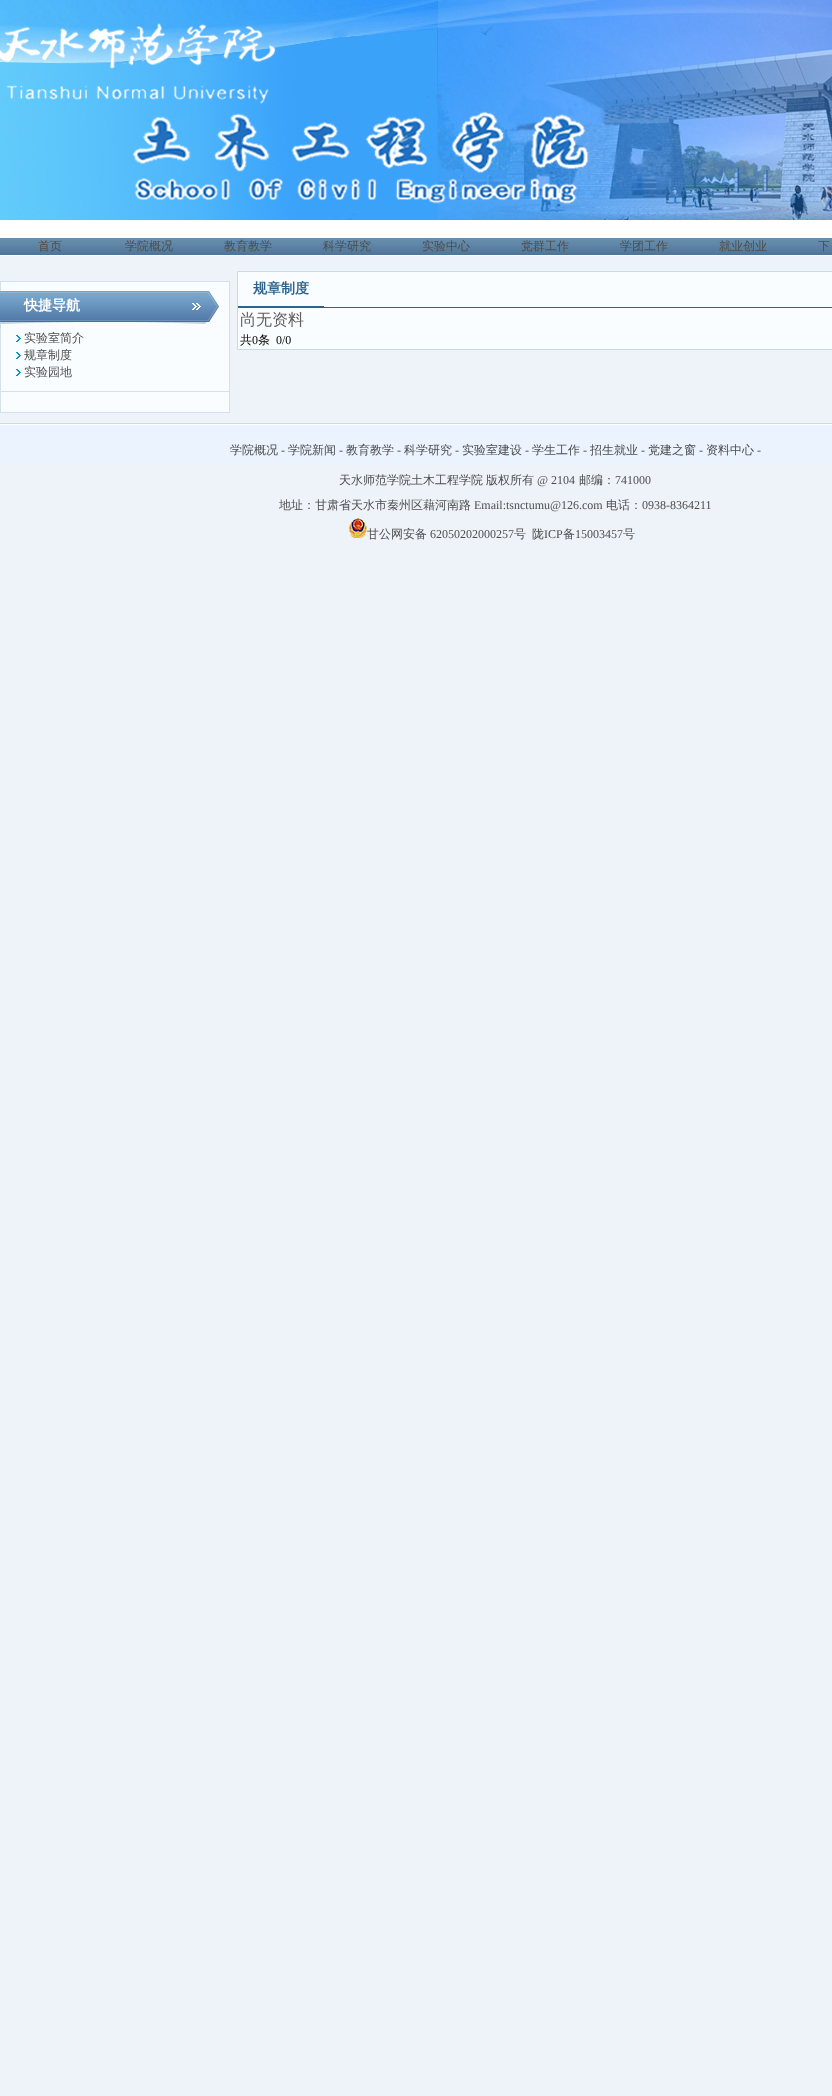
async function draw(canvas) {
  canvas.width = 832
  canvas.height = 2096
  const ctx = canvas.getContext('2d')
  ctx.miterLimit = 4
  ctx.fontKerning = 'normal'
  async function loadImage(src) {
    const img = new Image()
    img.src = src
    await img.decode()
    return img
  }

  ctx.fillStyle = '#eef3fa'
  ctx.fillRect(0, 0, 832, 2096)
  ctx.drawImage(await loadImage('image0.png'), 0, 0, 832, 220)
  ctx.fillStyle = '#fff'
  ctx.fillRect(0, 220, 832, 36)
  ctx.drawImage(await loadImage('image1.png'), 0, 238, 99, 17)
  ctx.font = '500 12px WenQuanYi Zen Hei'
  ctx.fillStyle = '#4d4d4d'
  ctx.fillText('首页', 38, 250)
  ctx.drawImage(await loadImage('image1.png'), 99, 238, 99, 17)
  ctx.fillText('学院概况', 125, 250)
  ctx.drawImage(await loadImage('image1.png'), 198, 238, 99, 17)
  ctx.fillText('教育教学', 224, 250)
  ctx.drawImage(await loadImage('image1.png'), 297, 238, 99, 17)
  ctx.fillText('科学研究', 323, 250)
  ctx.drawImage(await loadImage('image1.png'), 396, 238, 99, 17)
  ctx.fillText('实验中心', 422, 250)
  ctx.drawImage(await loadImage('image1.png'), 495, 238, 99, 17)
  ctx.fillText('党群工作', 521, 250)
  ctx.drawImage(await loadImage('image1.png'), 594, 238, 99, 17)
  ctx.fillText('学团工作', 620, 250)
  ctx.drawImage(await loadImage('image1.png'), 693, 238, 99, 17)
  ctx.fillText('就业创业', 719, 250)
  ctx.drawImage(await loadImage('image2.png'), 792, 238, 40, 17)
  ctx.fillText('下', 818, 250)
  ctx.fillStyle = '#d3e1ed'
  ctx.fillRect(0, 281, 230, 1)
  ctx.fillRect(229, 281, 1, 49)
  ctx.fillRect(0, 281, 1, 49)
  ctx.fillStyle = '#fafdff'
  ctx.fillRect(1, 282, 228, 109)
  ctx.drawImage(await loadImage('image3.png'), 0, 291, 219, 37)
  ctx.font = 'bold 14px WenQuanYi Zen Hei'
  ctx.fillStyle = '#fff'
  ctx.fillText('快捷导航', 24, 310)
  ctx.fillStyle = '#d3e1ed'
  ctx.fillRect(229, 330, 1, 83)
  ctx.fillRect(0, 391, 230, 1)
  ctx.fillRect(0, 330, 1, 62)
  ctx.drawImage(await loadImage('image4.png'), 16, 335, 5, 7)
  ctx.font = '500 12px WenQuanYi Zen Hei'
  ctx.fillStyle = '#4d4d4d'
  ctx.fillText('实验室简介', 24, 342)
  ctx.drawImage(await loadImage('image4.png'), 16, 352, 5, 7)
  ctx.fillText('规章制度', 24, 359)
  ctx.drawImage(await loadImage('image4.png'), 16, 369, 5, 7)
  ctx.fillText('实验园地', 24, 376)
  ctx.fillStyle = '#fafdff'
  ctx.fillRect(1, 392, 228, 20)
  ctx.fillStyle = '#d3e1ed'
  ctx.fillRect(0, 412, 230, 1)
  ctx.fillRect(0, 392, 1, 21)
  ctx.fillStyle = '#fafdff'
  ctx.beginPath()
  ctx.rect(237.5, 271.5, 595, 78)
  ctx.fill()
  ctx.strokeStyle = '#cadae7'
  ctx.stroke()
  ctx.fillStyle = '#2d648f'
  ctx.fillRect(324, 307, 508, 1)
  ctx.fillRect(238, 306, 86, 2)
  ctx.font = 'bold 14px WenQuanYi Zen Hei'
  ctx.fillText('规章制度', 253, 293)
  ctx.font = '500 16px WenQuanYi Zen Hei'
  ctx.fillStyle = '#606060'
  ctx.fillText('尚无资料', 240, 325)
  ctx.font = '500 12px WenQuanYi Zen Hei'
  ctx.fillStyle = '#000'
  ctx.fillText('共', 240, 344)
  ctx.font = '12px Liberation Serif'
  ctx.fillText('0', 252, 344)
  ctx.font = '500 12px WenQuanYi Zen Hei'
  ctx.fillText('条', 258, 344)
  ctx.font = '12px Liberation Serif'
  ctx.fillText('0/0', 276, 344)
  ctx.fillStyle = '#ebf3fe'
  ctx.fillRect(0, 425, 832, 38)
  ctx.drawImage(await loadImage('image5.png'), 0, 423, 832, 2)
  ctx.font = '500 12px WenQuanYi Zen Hei'
  ctx.fillStyle = '#4d4d4d'
  ctx.fillText('学院概况', 230, 454)
  ctx.font = '12px Liberation Serif'
  ctx.fillText('-', 281, 454)
  ctx.font = '500 12px WenQuanYi Zen Hei'
  ctx.fillText('学院新闻', 288, 454)
  ctx.font = '12px Liberation Serif'
  ctx.fillText('-', 339, 454)
  ctx.font = '500 12px WenQuanYi Zen Hei'
  ctx.fillText('教育教学', 346, 454)
  ctx.font = '12px Liberation Serif'
  ctx.fillText('-', 397, 454)
  ctx.font = '500 12px WenQuanYi Zen Hei'
  ctx.fillText('科学研究', 404, 454)
  ctx.font = '12px Liberation Serif'
  ctx.fillText('-', 455, 454)
  ctx.font = '500 12px WenQuanYi Zen Hei'
  ctx.fillText('实验室建设', 462, 454)
  ctx.font = '12px Liberation Serif'
  ctx.fillText('-', 525, 454)
  ctx.font = '500 12px WenQuanYi Zen Hei'
  ctx.fillText('学生工作', 532, 454)
  ctx.font = '12px Liberation Serif'
  ctx.fillText('-', 583, 454)
  ctx.font = '500 12px WenQuanYi Zen Hei'
  ctx.fillText('招生就业', 590, 454)
  ctx.font = '12px Liberation Serif'
  ctx.fillText('-', 641, 454)
  ctx.font = '500 12px WenQuanYi Zen Hei'
  ctx.fillText('党建之窗', 648, 454)
  ctx.font = '12px Liberation Serif'
  ctx.fillText('-', 699, 454)
  ctx.font = '500 12px WenQuanYi Zen Hei'
  ctx.fillText('资料中心', 706, 454)
  ctx.font = '12px Liberation Serif'
  ctx.fillText('-', 757, 454)
  ctx.font = '500 12px WenQuanYi Zen Hei'
  ctx.fillText('天水师范学院土木工程学院', 339, 484)
  ctx.fillText('版权所有', 486, 484)
  ctx.font = '12px Liberation Serif'
  ctx.fillText('@ 2104', 537, 484)
  ctx.font = '500 12px WenQuanYi Zen Hei'
  ctx.fillText('邮编：', 579, 484)
  ctx.font = '12px Liberation Serif'
  ctx.fillText('741000', 615, 484)
  ctx.font = '500 12px WenQuanYi Zen Hei'
  ctx.fillText('地址：甘肃省天水市秦州区藉河南路', 279, 509)
  ctx.font = '12px Liberation Serif'
  ctx.fillText('Email:tsnctumu@126.com', 474, 509)
  ctx.font = '500 12px WenQuanYi Zen Hei'
  ctx.fillText('电话：', 606, 509)
  ctx.font = '12px Liberation Serif'
  ctx.fillText('0938-8364211', 642, 509)
  ctx.drawImage(await loadImage('image6.png'), 349, 518, 18, 20)
  ctx.font = '500 12px WenQuanYi Zen Hei'
  ctx.fillText('甘公网安备', 367, 538)
  ctx.font = '12px Liberation Serif'
  ctx.fillText('62050202000257', 430, 538)
  ctx.font = '500 12px WenQuanYi Zen Hei'
  ctx.fillText('号', 514, 538)
  ctx.fillText('陇', 532, 538)
  ctx.font = '12px Liberation Serif'
  ctx.fillText('ICP', 544, 538)
  ctx.font = '500 12px WenQuanYi Zen Hei'
  ctx.fillText('备', 563, 538)
  ctx.font = '12px Liberation Serif'
  ctx.fillText('15003457', 575, 538)
  ctx.font = '500 12px WenQuanYi Zen Hei'
  ctx.fillText('号', 623, 538)
}

draw(document.querySelector('canvas'))
